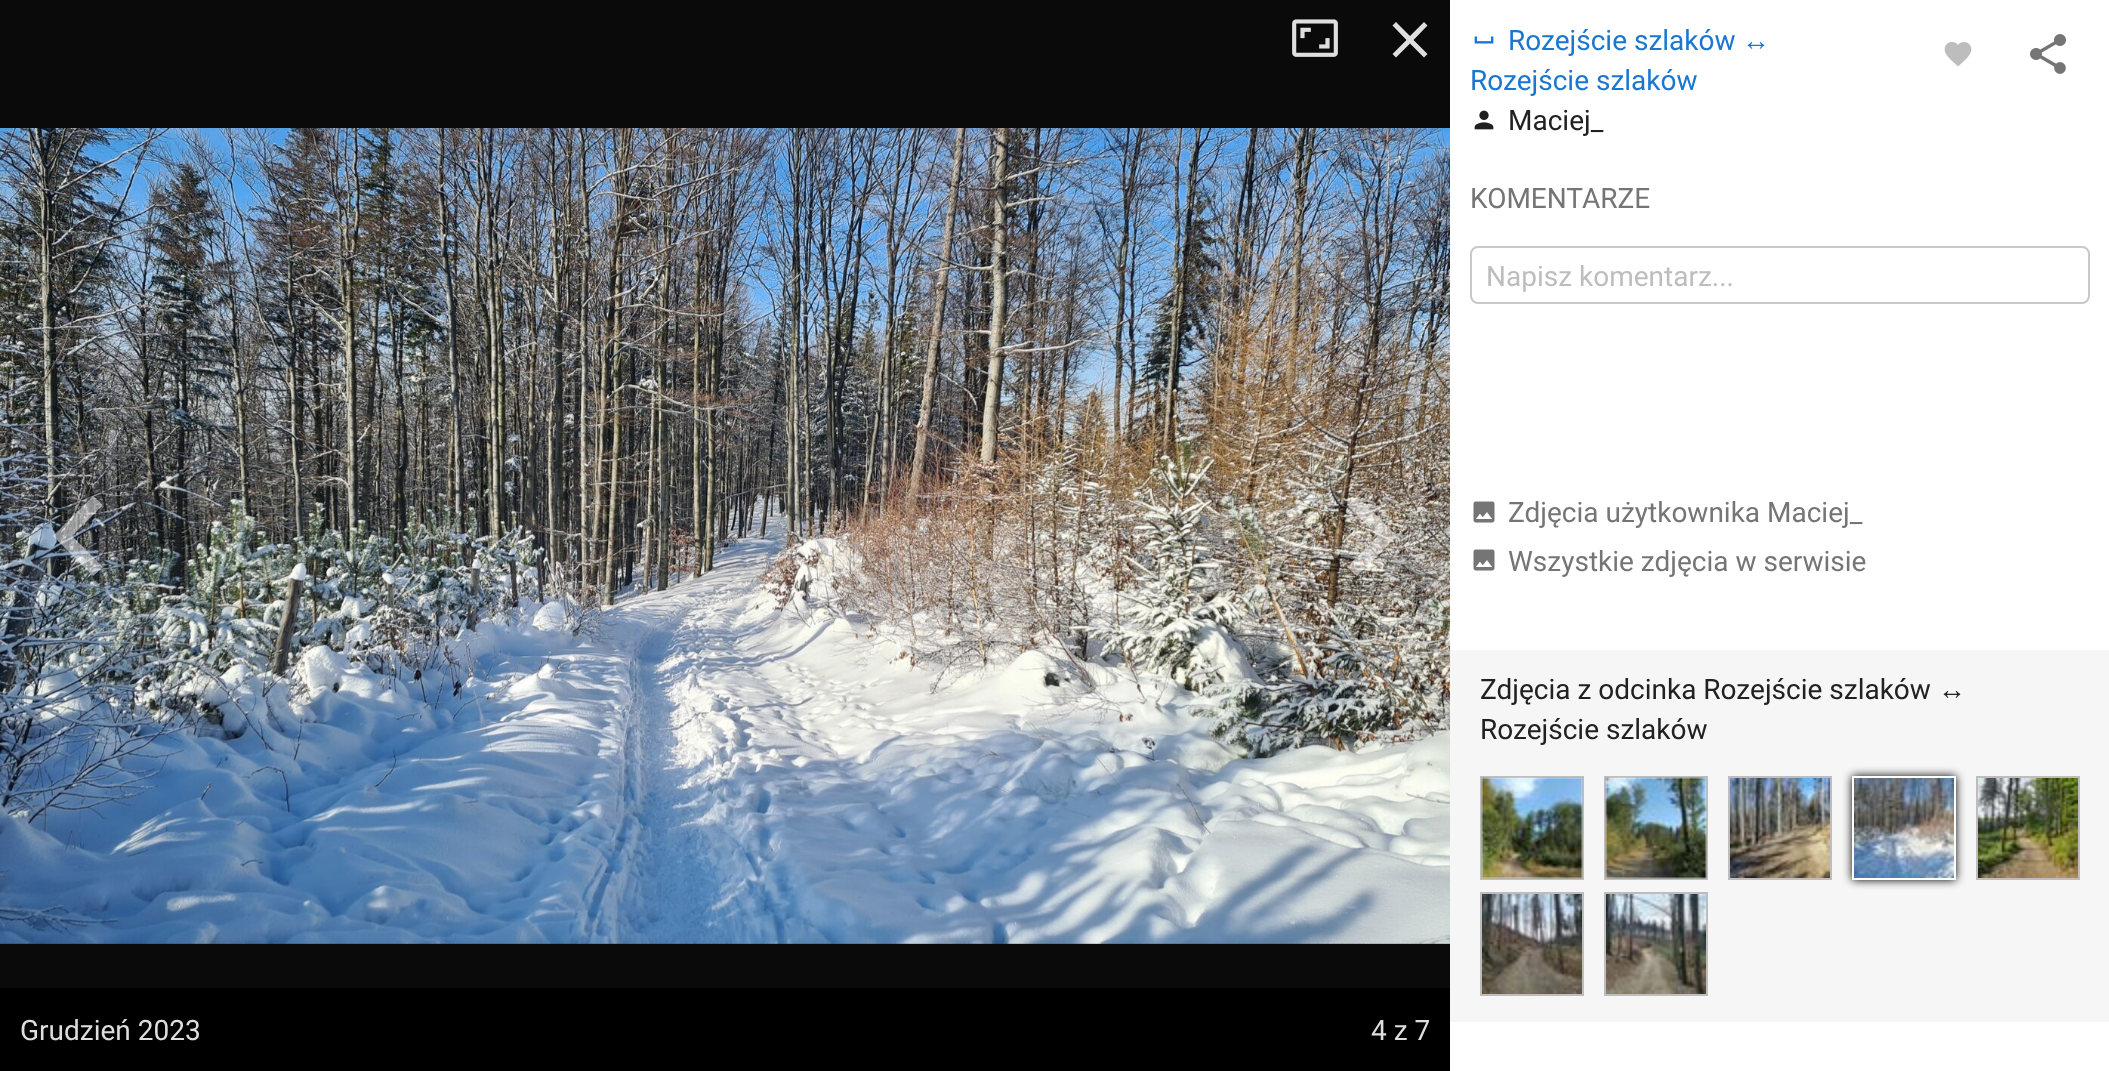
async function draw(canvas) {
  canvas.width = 2109
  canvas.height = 1071
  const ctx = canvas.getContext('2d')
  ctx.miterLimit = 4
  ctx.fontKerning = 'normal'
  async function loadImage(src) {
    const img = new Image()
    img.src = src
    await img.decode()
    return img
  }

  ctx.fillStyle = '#0a0a0a'
  ctx.fillRect(0, 0, 2109, 1071)
  ctx.fillStyle = '#fff'
  ctx.fillRect(1450, 0, 659, 1071)
  ctx.drawImage(await loadImage('image0.png'), 1474, 36, 20, 8)
  ctx.font = '28px Roboto'
  ctx.fillStyle = '#1976d2'
  ctx.fillText('Rozejście szlaków', 1508, 50)
  ctx.font = '28px Liberation Sans'
  ctx.fillText('↔', 1742, 50)
  ctx.font = '28px Roboto'
  ctx.fillText('Rozejście szlaków', 1470, 90)
  ctx.drawImage(await loadImage('image1.png'), 1474, 110, 20, 20)
  ctx.fillStyle = '#212121'
  ctx.fillText('Maciej_', 1508, 130)
  ctx.drawImage(await loadImage('image2.png'), 1944, 42, 28, 25)
  ctx.drawImage(await loadImage('image3.png'), 2030, 34, 36, 40)
  ctx.fillStyle = '#757575'
  ctx.fillText('KOMENTARZE', 1470, 208)
  ctx.beginPath()
  ctx.roundRect(1471, 247, 618, 56, 7)
  ctx.strokeStyle = '#c8c8c8'
  ctx.lineWidth = 2
  ctx.stroke()
  ctx.fillStyle = '#bdbdbd'
  ctx.fillText('Napisz komentarz...', 1486, 286)
  ctx.drawImage(await loadImage('image4.png'), 1473, 501, 22, 22)
  ctx.fillStyle = '#757575'
  ctx.fillText('Zdjęcia użytkownika Maciej_', 1508, 522)
  ctx.drawImage(await loadImage('image4.png'), 1473, 549, 22, 22)
  ctx.fillText('Wszystkie zdjęcia w serwisie', 1508, 571)
  ctx.fillStyle = '#f6f6f6'
  ctx.fillRect(1450, 650, 659, 372)
  ctx.fillStyle = '#212121'
  ctx.fillText('Zdjęcia z odcinka Rozejście szlaków', 1480, 699)
  ctx.font = '28px Liberation Sans'
  ctx.fillText('↔', 1938, 699)
  ctx.font = '28px Roboto'
  ctx.fillText('Rozejście szlaków', 1480, 739)
  ctx.strokeStyle = '#bdbdbd'
  ctx.strokeRect(1481, 777, 102, 102)
  ctx.drawImage(await loadImage('image5.png'), 1481, 777, 102, 102)
  ctx.strokeRect(1605, 777, 102, 102)
  ctx.drawImage(await loadImage('image6.png'), 1605, 777, 102, 102)
  ctx.strokeRect(1729, 777, 102, 102)
  ctx.drawImage(await loadImage('image7.png'), 1730, 778, 100, 100)
  ctx.fillStyle = '#000'
  ctx.filter = 'blur(5px)'
  ctx.beginPath()
  ctx.rect(1852, 776, 104, 104)
  ctx.fill()
  ctx.filter = 'none'
  ctx.strokeStyle = '#fff'
  ctx.strokeRect(1853, 777, 102, 102)
  ctx.drawImage(await loadImage('image8.png'), 1854, 778, 100, 100)
  ctx.strokeStyle = '#bdbdbd'
  ctx.strokeRect(1977, 777, 102, 102)
  ctx.drawImage(await loadImage('image9.png'), 1978, 778, 100, 100)
  ctx.strokeRect(1481, 893, 102, 102)
  ctx.drawImage(await loadImage('image10.png'), 1482, 894, 100, 100)
  ctx.strokeRect(1605, 893, 102, 102)
  ctx.drawImage(await loadImage('image11.png'), 1606, 894, 100, 100)
  ctx.drawImage(await loadImage('image12.png'), 1292, 19, 46, 38)
  ctx.fillStyle = '#dfdfdf'
  ctx.beginPath()
  ctx.moveTo(1427.5, 25.5)
  ctx.lineTo(1424, 22)
  ctx.lineTo(1410, 36)
  ctx.lineTo(1396, 22)
  ctx.lineTo(1392.5, 25.5)
  ctx.lineTo(1406.5, 40)
  ctx.lineTo(1392.5, 54)
  ctx.lineTo(1396, 57.5)
  ctx.lineTo(1410, 43.5)
  ctx.lineTo(1424, 57.5)
  ctx.lineTo(1427.5, 54)
  ctx.lineTo(1413.5, 40)
  ctx.closePath()
  ctx.fill()
  ctx.drawImage(await loadImage('image13.png'), 0, 128, 1450, 816)
  ctx.fillStyle = '#ffffff80'
  ctx.beginPath()
  ctx.moveTo(103, 505)
  ctx.lineTo(93, 496)
  ctx.lineTo(53, 536)
  ctx.lineTo(93, 576)
  ctx.lineTo(103, 567)
  ctx.lineTo(72, 536)
  ctx.closePath()
  ctx.fill()
  ctx.beginPath()
  ctx.moveTo(1357, 496)
  ctx.lineTo(1347, 505)
  ctx.lineTo(1378, 536)
  ctx.lineTo(1347, 567)
  ctx.lineTo(1357, 576)
  ctx.lineTo(1397, 536)
  ctx.closePath()
  ctx.fill()
  ctx.fillStyle = '#000'
  ctx.fillRect(0, 988, 1450, 83)
  ctx.fillStyle = '#dedede'
  ctx.fillText('Grudzień 2023', 20, 1040)
  ctx.fillText('4 z 7', 1371, 1040)
}

draw(document.querySelector('canvas'))
